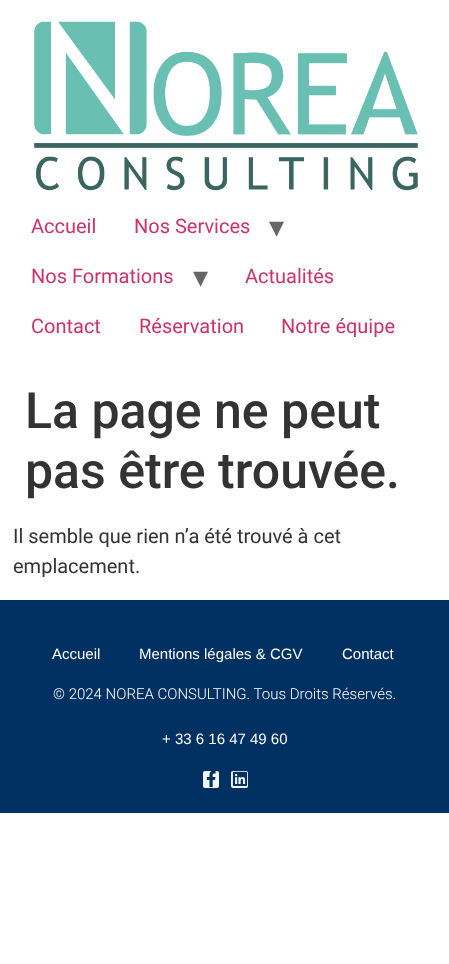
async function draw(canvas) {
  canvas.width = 449
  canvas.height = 964
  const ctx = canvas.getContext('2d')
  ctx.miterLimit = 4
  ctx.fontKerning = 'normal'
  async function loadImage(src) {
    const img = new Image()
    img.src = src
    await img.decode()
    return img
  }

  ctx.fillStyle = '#fff'
  ctx.fillRect(0, 0, 449, 964)
  ctx.drawImage(await loadImage('image0.png'), 34, 21, 384, 170)
  ctx.font = '20px Roboto'
  ctx.fillStyle = '#c36'
  ctx.fillText('Accueil', 31, 233)
  ctx.fillText('Nos Services', 134, 233)
  ctx.font = '30px DejaVu Sans'
  ctx.fillStyle = '#666'
  ctx.fillText('▾', 269, 237)
  ctx.font = '20px Roboto'
  ctx.fillStyle = '#c36'
  ctx.fillText('Nos Formations', 31, 283)
  ctx.font = '30px DejaVu Sans'
  ctx.fillStyle = '#666'
  ctx.fillText('▾', 193, 287)
  ctx.font = '20px Roboto'
  ctx.fillStyle = '#c36'
  ctx.fillText('Actualités', 245, 283)
  ctx.fillText('Contact', 31, 333)
  ctx.fillText('Réservation', 139, 333)
  ctx.fillText('Notre équipe', 281, 333)
  ctx.font = '500 50px Roboto'
  ctx.fillStyle = '#333'
  ctx.fillText('La page ne peut', 25, 428)
  ctx.fillText('pas être trouvée.', 25, 488)
  ctx.font = '20px Roboto'
  ctx.fillText('Il semble que rien n’a été trouvé à cet', 13, 543)
  ctx.fillText('emplacement.', 13, 573)
  ctx.fillStyle = '#003162'
  ctx.fillRect(0, 600, 449, 213)
  ctx.font = '15px Liberation Sans'
  ctx.fillStyle = '#fff'
  ctx.fillText('Accueil', 52, 659)
  ctx.fillText('Mentions légales & CGV', 139, 659)
  ctx.fillText('Contact', 342, 659)
  ctx.font = '300 15px Roboto'
  ctx.fillText('© 2024 NOREA CONSULTING. Tous Droits Réservés.', 53, 699)
  ctx.font = '15px Liberation Sans'
  ctx.fillText('+ 33 6 16 47 49 60', 162, 744)
  ctx.fillStyle = '#f0f8f7'
  ctx.beginPath()
  ctx.roundRect(203, 771, 16, 17, 2)
  ctx.fill()
  ctx.drawImage(await loadImage('image1.png'), 206, 771, 10, 16)
  ctx.beginPath()
  ctx.roundRect(231, 771, 17, 17, 2)
  ctx.fill()
  ctx.drawImage(await loadImage('image2.png'), 232, 771, 16, 15)
}

draw(document.querySelector('canvas'))
